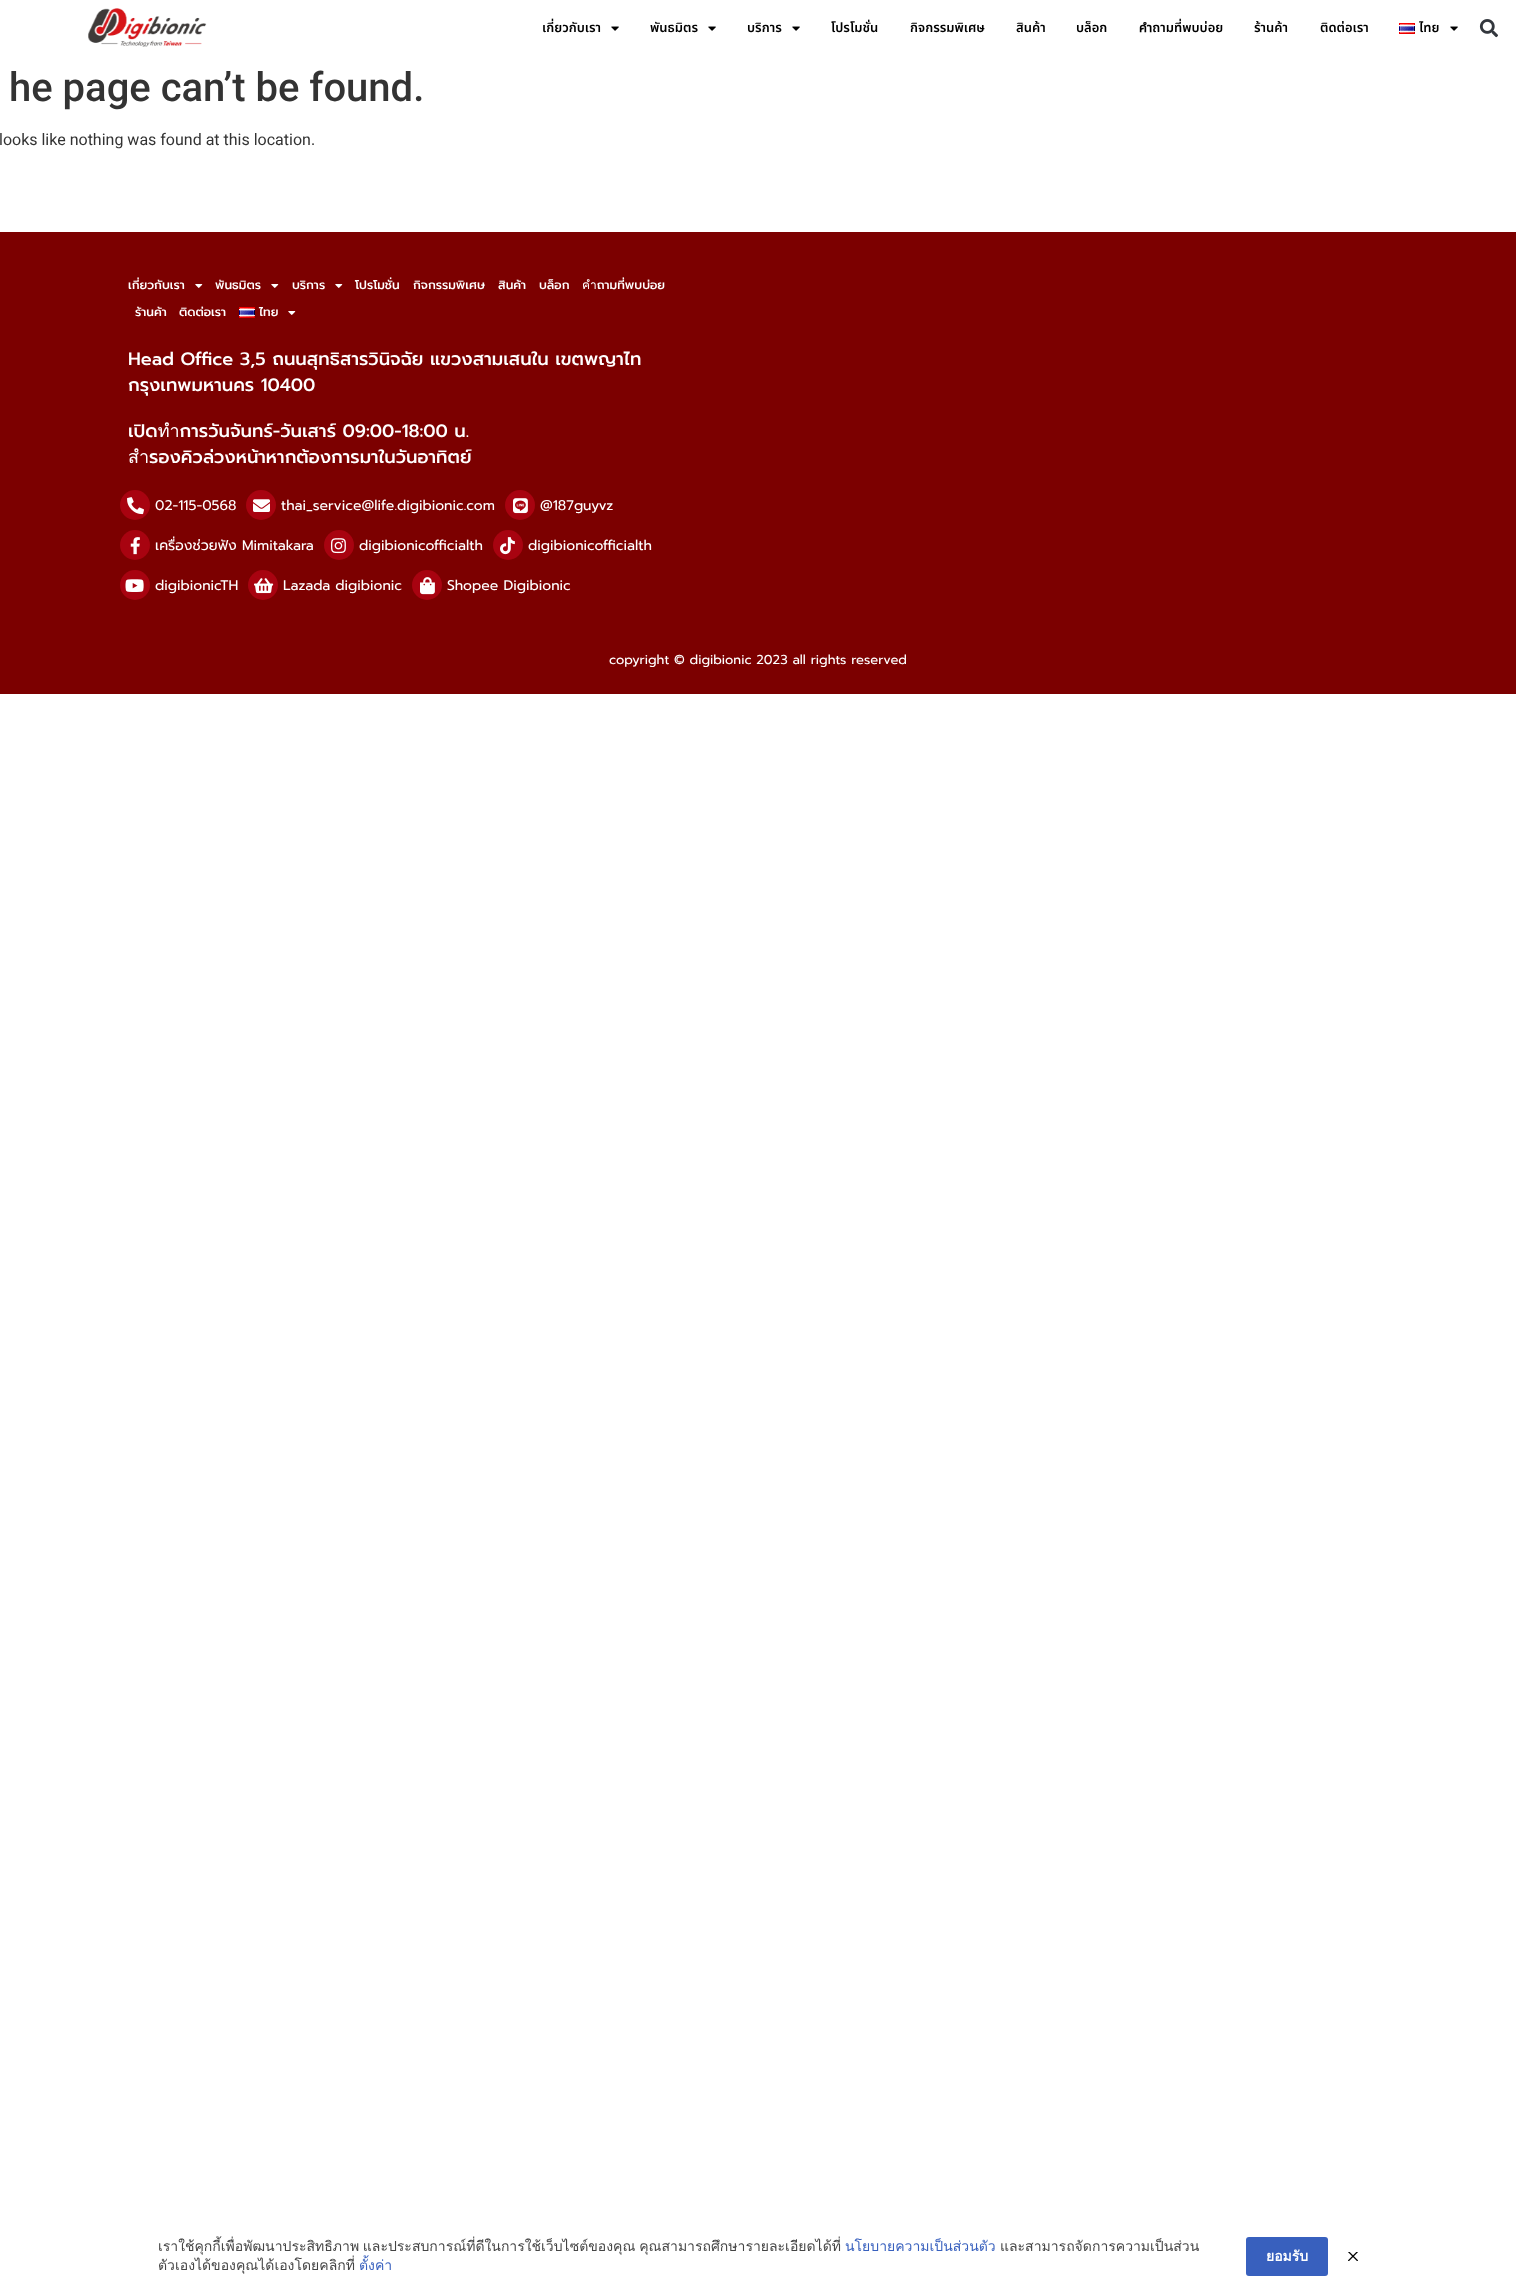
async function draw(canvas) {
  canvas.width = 1516
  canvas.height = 2291
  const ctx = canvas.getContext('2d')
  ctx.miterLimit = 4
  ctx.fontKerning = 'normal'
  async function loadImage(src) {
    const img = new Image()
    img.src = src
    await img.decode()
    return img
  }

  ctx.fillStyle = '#fff'
  ctx.fillRect(0, 0, 1516, 2291)
  ctx.drawImage(await loadImage('image0.png'), 88, 8, 119, 39)
  ctx.font = '600 13px Noto Sans Thai'
  ctx.fillStyle = '#000'
  ctx.fillText('เกี่ยวกับเรา', 542, 32)
  ctx.drawImage(await loadImage('image1.png'), 611, 26, 8, 5)
  ctx.fillText('พันธมิตร', 650, 32)
  ctx.drawImage(await loadImage('image1.png'), 708, 26, 8, 5)
  ctx.fillText('บริการ', 747, 32)
  ctx.drawImage(await loadImage('image1.png'), 792, 26, 8, 5)
  ctx.fillText('โปรโมชั่น', 831, 32)
  ctx.fillText('กิจกรรมพิเศษ', 910, 32)
  ctx.fillText('สินค้า', 1016, 32)
  ctx.fillText('บล็อก', 1076, 32)
  ctx.fillText('คำถามที่พบบ่อย', 1139, 32)
  ctx.fillText('ร้านค้า', 1254, 32)
  ctx.fillText('ติดต่อเรา', 1320, 32)
  ctx.drawImage(await loadImage('image2.png'), 1399, 23, 16, 11)
  ctx.fillText('ไทย', 1419, 32)
  ctx.drawImage(await loadImage('image1.png'), 1450, 26, 8, 5)
  ctx.drawImage(await loadImage('image3.png'), 1479, 19, 19, 19)
  ctx.font = '500 40px Roboto'
  ctx.fillStyle = '#333'
  ctx.fillText('he page can’t be found.', 9, 101)
  ctx.font = '16px Roboto'
  ctx.fillText('looks like nothing was found at this location.', -1, 145)
  ctx.fillStyle = '#7c0000'
  ctx.fillRect(0, 232, 1516, 462)
  ctx.font = '500 12px Prompt'
  ctx.fillStyle = '#fff'
  ctx.fillText('เกี่ยวกับเรา', 128, 289)
  ctx.drawImage(await loadImage('image4.png'), 195, 284, 8, 4)
  ctx.fillText('พันธมิตร', 215, 289)
  ctx.drawImage(await loadImage('image4.png'), 271, 284, 8, 4)
  ctx.fillText('บริการ', 292, 289)
  ctx.drawImage(await loadImage('image4.png'), 335, 284, 8, 4)
  ctx.fillText('โปรโมชั่น', 355, 289)
  ctx.fillText('กิจกรรมพิเศษ', 413, 289)
  ctx.fillText('สินค้า', 498, 289)
  ctx.fillText('บล็อก', 539, 289)
  ctx.fillText('คำถามที่พบบ่อย', 582, 289)
  ctx.fillText('ร้านค้า', 135, 316)
  ctx.fillText('ติดต่อเรา', 179, 316)
  ctx.drawImage(await loadImage('image2.png'), 239, 307, 16, 11)
  ctx.fillText('ไทย', 259, 316)
  ctx.drawImage(await loadImage('image4.png'), 288, 311, 8, 4)
  ctx.font = '500 18px Prompt'
  ctx.fillText('Head Office 3,5 ถนนสุทธิสารวินิจฉัย แขวงสามเสนใน เขตพญาไท', 128, 365)
  ctx.fillText('กรุงเทพมหานคร 10400', 128, 391)
  ctx.fillText('เปิดทำการวันจันทร์-วันเสาร์ 09:00-18:00 น.', 128, 437)
  ctx.fillText('สำรองคิวล่วงหน้าหากต้องการมาในวันอาทิตย์', 128, 463)
  ctx.fillStyle = '#a80310'
  ctx.beginPath()
  ctx.arc(135, 505, 15, 0, 2 * Math.PI)
  ctx.fill()
  ctx.drawImage(await loadImage('image5.png'), 127, 497, 17, 18)
  ctx.font = '14px Prompt'
  ctx.fillStyle = '#fff'
  ctx.fillText('02-115-0568', 155, 510)
  ctx.fillStyle = '#a80310'
  ctx.beginPath()
  ctx.arc(261, 505, 15, 0, 2 * Math.PI)
  ctx.fill()
  ctx.drawImage(await loadImage('image6.png'), 253, 499, 17, 13)
  ctx.fillStyle = '#fff'
  ctx.fillText('thai_service@life.digibionic.com', 281, 510)
  ctx.fillStyle = '#a80310'
  ctx.beginPath()
  ctx.arc(520, 505, 15, 0, 2 * Math.PI)
  ctx.fill()
  ctx.drawImage(await loadImage('image7.png'), 513, 498, 15, 16)
  ctx.fillStyle = '#fff'
  ctx.fillText('@187guyvz', 540, 510)
  ctx.fillStyle = '#a80310'
  ctx.beginPath()
  ctx.arc(135, 545, 15, 0, 2 * Math.PI)
  ctx.fill()
  ctx.drawImage(await loadImage('image8.png'), 130, 537, 10, 18)
  ctx.fillStyle = '#fff'
  ctx.fillText('เครื่องช่วยฟัง Mimitakara', 155, 550)
  ctx.fillStyle = '#a80310'
  ctx.beginPath()
  ctx.arc(339, 545, 15, 0, 2 * Math.PI)
  ctx.fill()
  ctx.drawImage(await loadImage('image9.png'), 331, 538, 15, 16)
  ctx.fillStyle = '#fff'
  ctx.fillText('digibionicofficialth', 359, 550)
  ctx.fillStyle = '#a80310'
  ctx.beginPath()
  ctx.arc(508, 545, 15, 0, 2 * Math.PI)
  ctx.fill()
  ctx.drawImage(await loadImage('image10.png'), 500, 537, 15, 18)
  ctx.fillStyle = '#fff'
  ctx.fillText('digibionicofficialth', 528, 550)
  ctx.fillStyle = '#a80310'
  ctx.beginPath()
  ctx.arc(135, 585, 15, 0, 2 * Math.PI)
  ctx.fill()
  ctx.drawImage(await loadImage('image11.png'), 125, 579, 19, 13)
  ctx.fillStyle = '#fff'
  ctx.fillText('digibionicTH', 155, 590)
  ctx.fillStyle = '#a80310'
  ctx.beginPath()
  ctx.arc(263, 585, 15, 0, 2 * Math.PI)
  ctx.fill()
  ctx.drawImage(await loadImage('image12.png'), 254, 578, 20, 16)
  ctx.fillStyle = '#fff'
  ctx.fillText('Lazada digibionic', 283, 590)
  ctx.fillStyle = '#a80310'
  ctx.beginPath()
  ctx.arc(427, 585, 15, 0, 2 * Math.PI)
  ctx.fill()
  ctx.drawImage(await loadImage('image13.png'), 420, 577, 15, 18)
  ctx.fillStyle = '#fff'
  ctx.fillText('Shopee Digibionic', 447, 590)
  ctx.font = '13px Prompt'
  ctx.fillText('copyright © digibionic 2023 all rights reserved', 609, 664)
  ctx.wordSpacing = '-1px'
  ctx.font = '14px Loma'
  ctx.fillStyle = '#444'
  ctx.fillText('เราใช้คุกกี้เพื่อพัฒนาประสิทธิภาพ และประสบการณ์ที่ดีในการใช้เว็บไซต์ของคุณ คุณสามารถศึกษารายละเอียดได้ที่', 158, 2251)
  ctx.wordSpacing = '0px'
  ctx.fillStyle = '#3860be'
  ctx.fillText('นโยบายความเป็นส่วนตัว', 845, 2251)
  ctx.fillStyle = '#444'
  ctx.fillText('และสามารถจัดการความเป็นส่วน', 1000, 2251)
  ctx.fillText('ตัวเองได้ของคุณได้เองโดยคลิกที่', 158, 2270)
  ctx.fillStyle = '#3860be'
  ctx.fillText('ตั้งค่า', 359, 2270)
  ctx.beginPath()
  ctx.roundRect(1246, 2237, 82, 39, 3)
  ctx.fill()
  ctx.font = 'bold 14px Loma'
  ctx.fillStyle = '#fff'
  ctx.fillText('ยอมรับ', 1266, 2261)
  ctx.drawImage(await loadImage('image14.png'), 1348, 2252, 10, 9)
}

draw(document.querySelector('canvas'))
